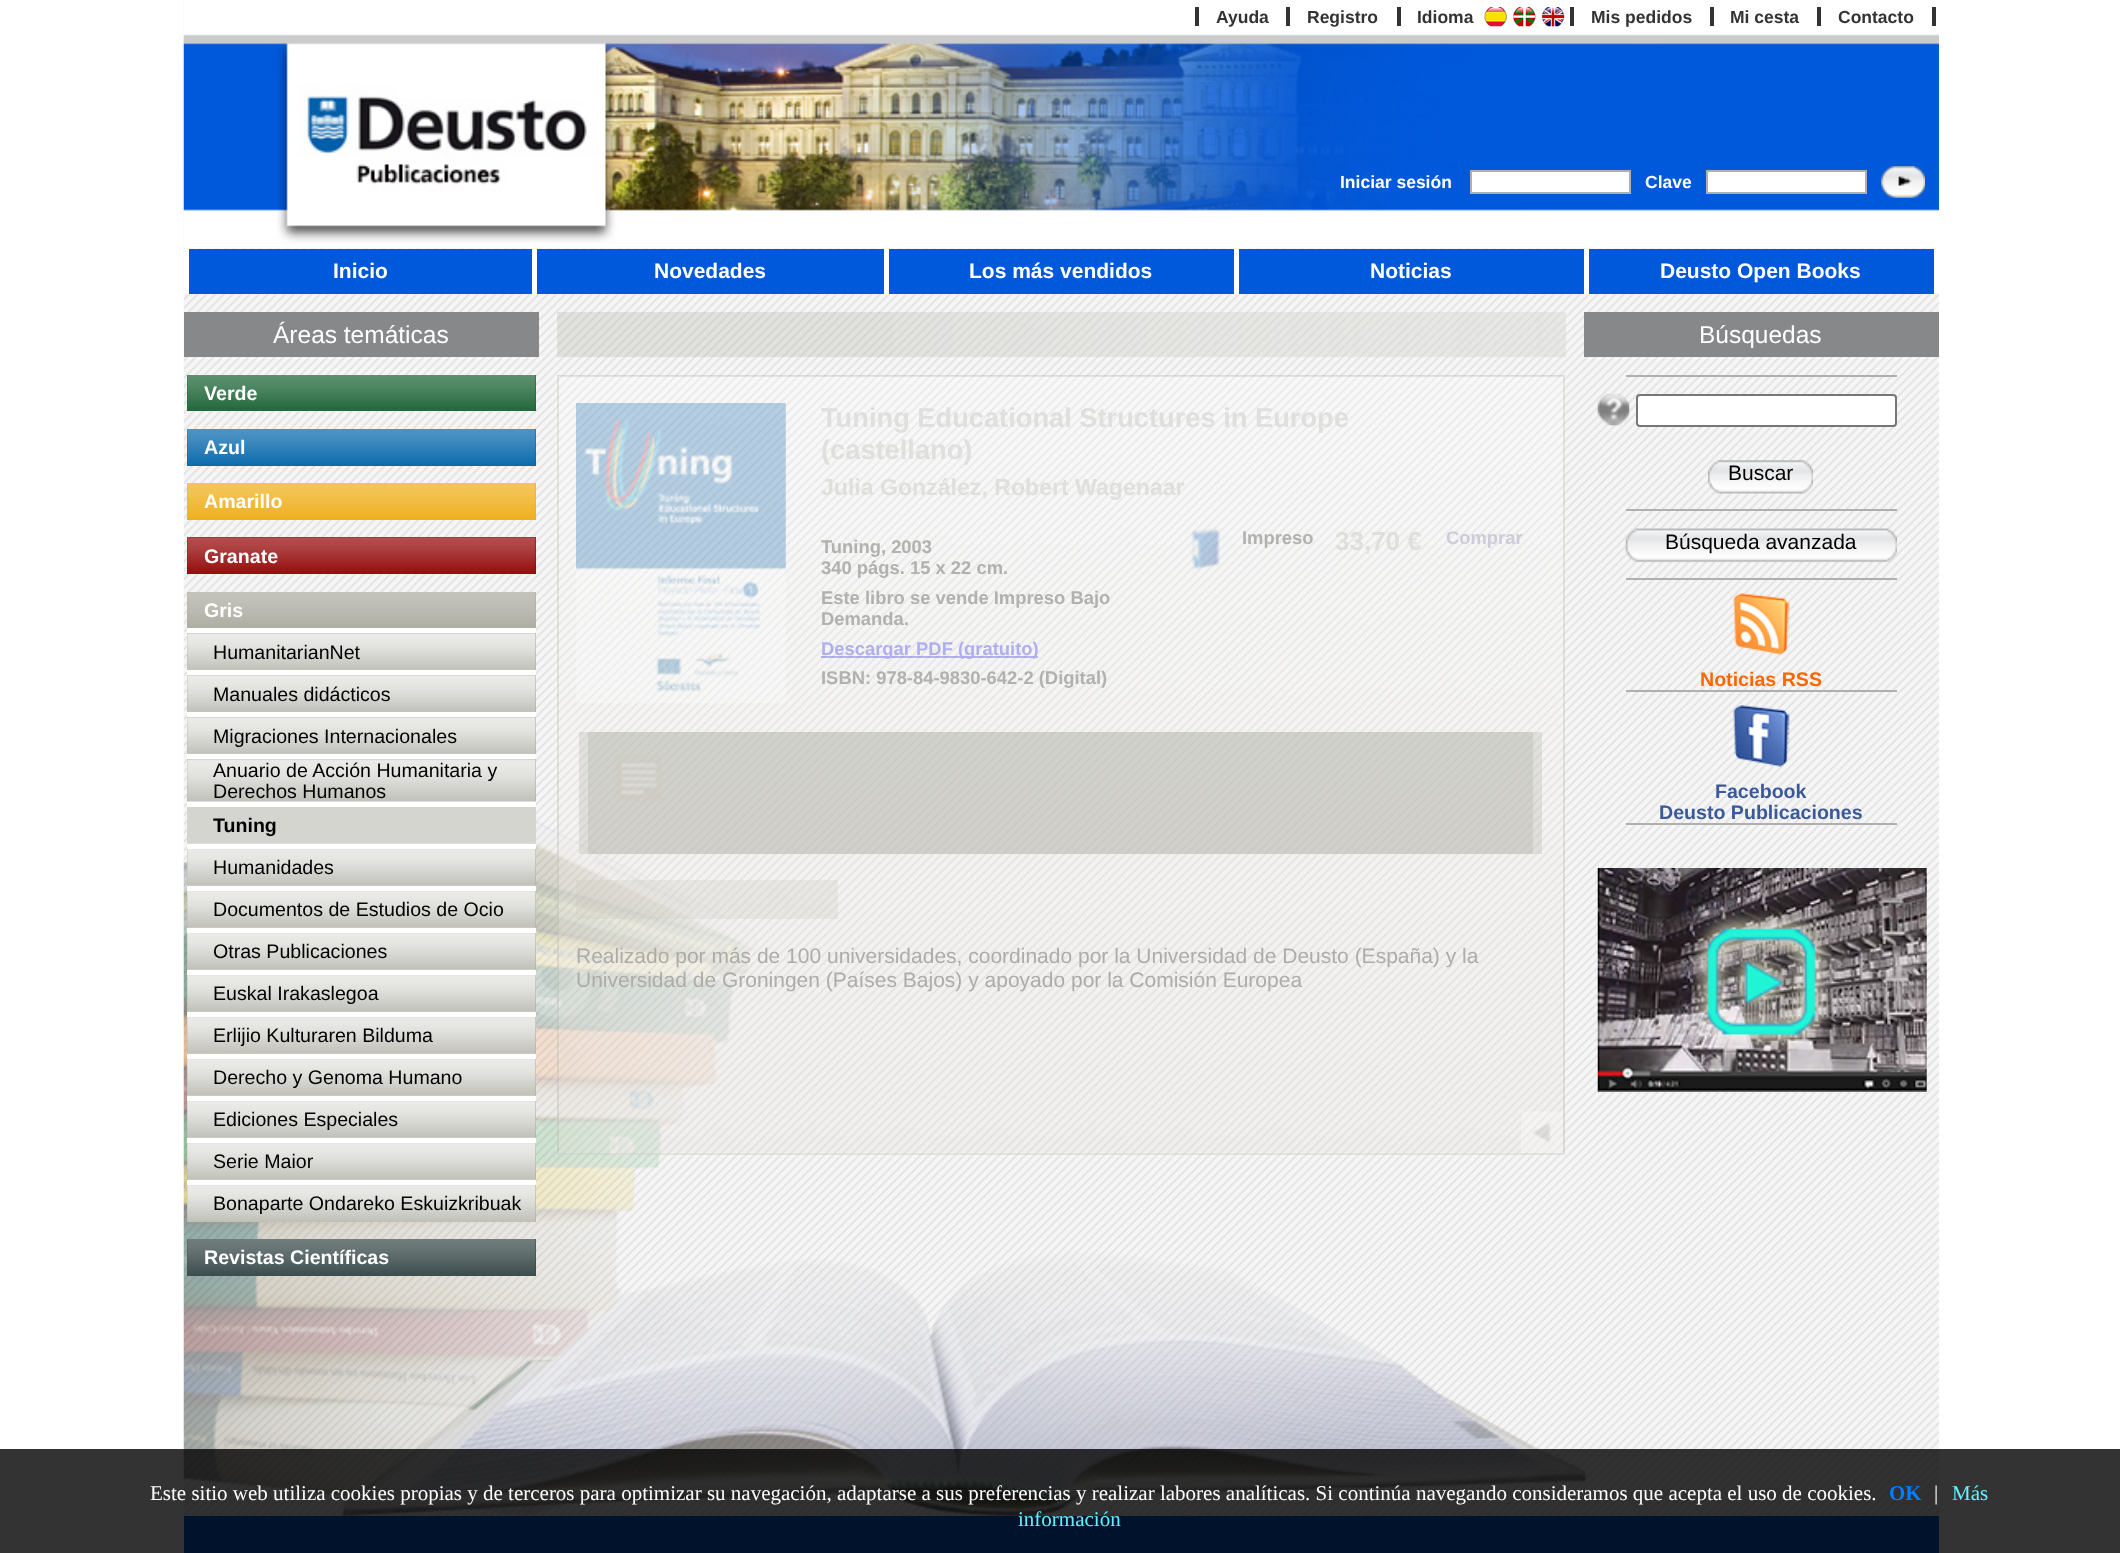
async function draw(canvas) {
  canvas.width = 2120
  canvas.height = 1553
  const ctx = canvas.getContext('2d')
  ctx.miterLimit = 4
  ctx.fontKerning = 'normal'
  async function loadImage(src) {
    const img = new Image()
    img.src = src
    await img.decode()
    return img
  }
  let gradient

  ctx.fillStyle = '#fff'
  ctx.fillRect(0, 0, 2120, 1553)
  ctx.drawImage(await loadImage('image0.png'), 183, 0, 1756, 1553)
  ctx.drawImage(await loadImage('image1.png'), 183, 0, 1756, 249)
  ctx.fillStyle = '#333'
  ctx.fillRect(1195, 7, 4, 19)
  ctx.font = 'bold 17.5px Liberation Sans'
  ctx.fillText('Ayuda', 1216, 23)
  ctx.fillRect(1286, 7, 4, 19)
  ctx.fillText('Registro', 1307, 23)
  ctx.fillRect(1397, 7, 4, 19)
  ctx.drawImage(await loadImage('image2.png'), 1484, 7, 81, 20)
  ctx.fillText('Idioma', 1417, 23)
  ctx.fillRect(1570, 7, 4, 19)
  ctx.fillText('Mis pedidos', 1591, 23)
  ctx.fillRect(1710, 7, 4, 19)
  ctx.fillText('Mi cesta', 1730, 23)
  ctx.fillRect(1817, 7, 4, 19)
  ctx.fillText('Contacto', 1838, 23)
  ctx.fillRect(1932, 7, 4, 19)
  ctx.fillStyle = '#fff'
  ctx.fillText('Iniciar sesión', 1340, 188)
  ctx.beginPath()
  ctx.rect(1471, 171, 159, 22)
  ctx.fill()
  ctx.strokeStyle = '#afafaf'
  ctx.lineWidth = 2
  ctx.stroke()
  ctx.fillText('Clave', 1645, 188)
  ctx.beginPath()
  ctx.rect(1707, 171, 159, 22)
  ctx.fill()
  ctx.stroke()
  ctx.drawImage(await loadImage('image3.png'), 1881, 166, 44, 32)
  ctx.fillRect(184, 249, 5, 45)
  ctx.fillStyle = '#0059db'
  ctx.fillRect(189, 249, 343, 45)
  ctx.font = 'bold 21px Liberation Sans'
  ctx.fillStyle = '#fff'
  ctx.fillText('Inicio', 333, 278)
  ctx.fillRect(532, 249, 5, 45)
  ctx.fillStyle = '#0059db'
  ctx.fillRect(537, 249, 347, 45)
  ctx.fillStyle = '#fff'
  ctx.fillText('Novedades', 654, 278)
  ctx.fillRect(884, 249, 5, 45)
  ctx.fillStyle = '#0059db'
  ctx.fillRect(889, 249, 345, 45)
  ctx.fillStyle = '#fff'
  ctx.fillText('Los más vendidos', 969, 278)
  ctx.fillRect(1234, 249, 5, 45)
  ctx.fillStyle = '#0059db'
  ctx.fillRect(1239, 249, 345, 45)
  ctx.fillStyle = '#fff'
  ctx.fillText('Noticias', 1370, 278)
  ctx.fillRect(1584, 249, 5, 45)
  ctx.fillStyle = '#0059db'
  ctx.fillRect(1589, 249, 345, 45)
  ctx.fillStyle = '#fff'
  ctx.fillText('Deusto Open Books', 1660, 278)
  ctx.fillRect(1934, 249, 5, 45)
  ctx.drawImage(await loadImage('image4.png'), 183, 821, 1403, 695)
  ctx.fillStyle = '#868889'
  ctx.fillRect(184, 312, 355, 45)
  ctx.font = '24.5px Liberation Sans'
  ctx.fillStyle = '#fff'
  ctx.fillText('Áreas temáticas', 273, 343)
  ctx.fillStyle = '#166031'
  ctx.fillRect(187, 375, 349, 36)
  ctx.drawImage(await loadImage('image5.png'), 187, 375, 349, 36)
  ctx.font = 'bold 19.6px Liberation Sans'
  ctx.fillStyle = '#fff'
  ctx.fillText('Verde', 204, 400)
  ctx.fillStyle = '#0064aa'
  ctx.fillRect(187, 429, 349, 37)
  ctx.drawImage(await loadImage('image6.png'), 187, 429, 349, 37)
  ctx.fillStyle = '#fff'
  ctx.fillText('Azul', 204, 454)
  ctx.fillStyle = '#efac13'
  ctx.fillRect(187, 483, 349, 37)
  ctx.drawImage(await loadImage('image7.png'), 187, 483, 349, 37)
  ctx.fillStyle = '#fff'
  ctx.fillText('Amarillo', 204, 508)
  ctx.fillStyle = '#910000'
  ctx.fillRect(187, 537, 349, 37)
  ctx.drawImage(await loadImage('image8.png'), 187, 537, 349, 37)
  ctx.fillStyle = '#fff'
  ctx.fillText('Granate', 204, 563)
  ctx.fillStyle = '#aaaaa0'
  ctx.fillRect(187, 592, 349, 630)
  ctx.drawImage(await loadImage('image9.png'), 187, 592, 349, 36)
  ctx.fillStyle = '#fff'
  ctx.fillText('Gris', 204, 617)
  ctx.drawImage(await loadImage('image10.png'), 187, 633, 349, 37)
  ctx.fillRect(187, 628, 349, 5)
  ctx.font = '19.6px Liberation Sans'
  ctx.fillStyle = '#000'
  ctx.fillText('HumanitarianNet', 213, 659)
  ctx.drawImage(await loadImage('image10.png'), 187, 675, 349, 37)
  ctx.fillStyle = '#fff'
  ctx.fillRect(187, 670, 349, 5)
  ctx.fillStyle = '#000'
  ctx.fillText('Manuales didácticos', 213, 701)
  ctx.drawImage(await loadImage('image10.png'), 187, 717, 349, 37)
  ctx.fillStyle = '#fff'
  ctx.fillRect(187, 712, 349, 5)
  ctx.fillStyle = '#000'
  ctx.fillText('Migraciones Internacionales', 213, 743)
  ctx.drawImage(await loadImage('image11.png'), 187, 759, 349, 43)
  ctx.fillStyle = '#fff'
  ctx.fillRect(187, 754, 349, 5)
  ctx.fillStyle = '#000'
  ctx.fillText('Anuario de Acción Humanitaria y', 213, 777)
  ctx.fillText('Derechos Humanos', 213, 798)
  ctx.fillStyle = '#ffffff80'
  ctx.fillRect(187, 801, 349, 43)
  ctx.fillStyle = '#fff'
  ctx.fillRect(187, 802, 349, 5)
  ctx.font = 'bold 19.6px Liberation Sans'
  ctx.fillStyle = '#000'
  ctx.fillText('Tuning', 213, 832)
  ctx.drawImage(await loadImage('image12.png'), 187, 843, 349, 43)
  ctx.fillStyle = '#fff'
  ctx.fillRect(187, 844, 349, 5)
  ctx.font = '19.6px Liberation Sans'
  ctx.fillStyle = '#000'
  ctx.fillText('Humanidades', 213, 874)
  ctx.drawImage(await loadImage('image13.png'), 187, 885, 349, 43)
  ctx.fillStyle = '#fff'
  ctx.fillRect(187, 886, 349, 5)
  ctx.fillStyle = '#000'
  ctx.fillText('Documentos de Estudios de Ocio', 213, 916)
  ctx.drawImage(await loadImage('image13.png'), 187, 927, 349, 43)
  ctx.fillStyle = '#fff'
  ctx.fillRect(187, 928, 349, 5)
  ctx.fillStyle = '#000'
  ctx.fillText('Otras Publicaciones', 213, 958)
  ctx.drawImage(await loadImage('image13.png'), 187, 969, 349, 43)
  ctx.fillStyle = '#fff'
  ctx.fillRect(187, 970, 349, 5)
  ctx.fillStyle = '#000'
  ctx.fillText('Euskal Irakaslegoa', 213, 1000)
  ctx.drawImage(await loadImage('image13.png'), 187, 1011, 349, 43)
  ctx.fillStyle = '#fff'
  ctx.fillRect(187, 1012, 349, 5)
  ctx.fillStyle = '#000'
  ctx.fillText('Erlijio Kulturaren Bilduma', 213, 1042)
  ctx.drawImage(await loadImage('image13.png'), 187, 1053, 349, 43)
  ctx.fillStyle = '#fff'
  ctx.fillRect(187, 1054, 349, 5)
  ctx.fillStyle = '#000'
  ctx.fillText('Derecho y Genoma Humano', 213, 1084)
  ctx.drawImage(await loadImage('image13.png'), 187, 1095, 349, 43)
  ctx.fillStyle = '#fff'
  ctx.fillRect(187, 1096, 349, 5)
  ctx.fillStyle = '#000'
  ctx.fillText('Ediciones Especiales', 213, 1126)
  ctx.drawImage(await loadImage('image13.png'), 187, 1137, 349, 43)
  ctx.fillStyle = '#fff'
  ctx.fillRect(187, 1138, 349, 5)
  ctx.fillStyle = '#000'
  ctx.fillText('Serie Maior', 213, 1168)
  ctx.drawImage(await loadImage('image13.png'), 187, 1179, 349, 43)
  ctx.fillStyle = '#fff'
  ctx.fillRect(187, 1180, 349, 5)
  ctx.fillStyle = '#000'
  ctx.fillText('Bonaparte Ondareko Eskuizkribuak', 213, 1210)
  ctx.fillStyle = '#344'
  ctx.fillRect(187, 1239, 349, 37)
  ctx.drawImage(await loadImage('image14.png'), 187, 1239, 349, 37)
  ctx.font = 'bold 19.6px Liberation Sans'
  ctx.fillStyle = '#fff'
  ctx.fillText('Revistas Científicas', 204, 1264)
  ctx.fillStyle = '#aaaaa045'
  ctx.fillRect(557, 312, 1009, 45)
  ctx.drawImage(await loadImage('image15.png'), 893, 312, 673, 45)
  gradient = ctx.createLinearGradient(1061, 376, 1061, 1153)
  gradient.addColorStop(0, '#ffffff45')
  gradient.addColorStop(1, '#e3ddd545')
  ctx.fillStyle = gradient
  ctx.fillRect(557, 376, 1008, 777)
  gradient = ctx.createLinearGradient(1061, 1153, 1061, 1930)
  gradient.addColorStop(0, '#ffffff45')
  gradient.addColorStop(1, '#e3ddd545')
  ctx.fillStyle = gradient
  ctx.fillRect(557, 1153, 1008, 2)
  ctx.strokeStyle = '#aaaaa045'
  ctx.strokeRect(558, 376, 1006, 778)
  ctx.drawImage(await loadImage('image16.png'), 576, 403, 210, 300)
  ctx.font = 'bold 27.25px Liberation Sans'
  ctx.fillStyle = '#dfdfdd'
  ctx.fillText('Tuning Educational Structures in Europe', 821, 427)
  ctx.fillText('(castellano)', 821, 459)
  ctx.font = 'bold 23.1px Liberation Sans'
  ctx.fillText('Julia González, Robert Wagenaar', 821, 495)
  ctx.font = 'bold 18.4px Liberation Sans'
  ctx.fillStyle = '#b1b1b0'
  ctx.fillText('Tuning, 2003', 821, 553)
  ctx.fillText('340 págs. 15 x 22 cm.', 821, 574)
  ctx.fillText('Este libro se vende Impreso Bajo', 821, 604)
  ctx.fillText('Demanda.', 821, 625)
  ctx.fillStyle = '#0000ee45'
  ctx.fillRect(821, 656, 217, 2)
  ctx.fillStyle = '#afaff0'
  ctx.fillText('Descargar PDF (gratuito)', 821, 655)
  ctx.fillStyle = '#b1b1b0'
  ctx.fillText('ISBN: 978-84-9830-642-2 (Digital)', 821, 684)
  ctx.drawImage(await loadImage('image17.png'), 1191, 528, 30, 42)
  ctx.fillText('Impreso', 1242, 544)
  ctx.font = 'bold 26px Liberation Sans'
  ctx.fillStyle = '#dfdfdd'
  ctx.fillText('33,70 €', 1335, 550)
  ctx.font = 'bold 18.4px Liberation Sans'
  ctx.fillStyle = '#ccccda'
  ctx.fillText('Comprar', 1446, 544)
  ctx.fillStyle = '#aaaaa045'
  ctx.fillRect(579, 732, 963, 122)
  ctx.fillRect(588, 732, 945, 122)
  ctx.drawImage(await loadImage('image18.png'), 615, 755, 47, 46)
  ctx.fillStyle = '#cdc8be45'
  ctx.fillRect(576, 880, 262, 39)
  ctx.font = '21px Liberation Sans'
  ctx.fillStyle = '#adaca9'
  ctx.fillText('Realizado por más de 100 universidades, coordinado por la Universidad de Deusto (España) y la', 576, 963)
  ctx.fillText('Universidad de Groningen (Países Bajos) y apoyado por la Comisión Europea', 576, 987)
  ctx.drawImage(await loadImage('image19.png'), 1521, 1111, 42, 42)
  ctx.fillStyle = '#868889'
  ctx.fillRect(1584, 312, 355, 45)
  ctx.font = '24.5px Liberation Sans'
  ctx.fillStyle = '#fff'
  ctx.fillText('Búsquedas', 1699, 343)
  ctx.fillStyle = '#afafaf'
  ctx.fillRect(1626, 375, 271, 2)
  ctx.drawImage(await loadImage('image20.png'), 1597, 393, 33, 33)
  ctx.fillStyle = '#fff'
  ctx.beginPath()
  ctx.roundRect(1637, 395, 259, 31, 3)
  ctx.fill()
  ctx.strokeStyle = '#767676'
  ctx.stroke()
  ctx.fillStyle = '#afafaf'
  ctx.fillRect(1626, 509, 271, 2)
  ctx.drawImage(await loadImage('image21.png'), 1708, 460, 105, 34)
  ctx.font = '21px Liberation Sans'
  ctx.fillStyle = '#000'
  ctx.fillText('Buscar', 1728, 480)
  ctx.fillStyle = '#afafaf'
  ctx.fillRect(1626, 578, 271, 2)
  ctx.drawImage(await loadImage('image22.png'), 1625, 528, 272, 34)
  ctx.fillStyle = '#000'
  ctx.fillText('Búsqueda avanzada', 1665, 549)
  ctx.fillStyle = '#afafaf'
  ctx.fillRect(1626, 690, 271, 2)
  ctx.drawImage(await loadImage('image23.png'), 1733, 593, 57, 62)
  ctx.font = 'bold 19.6px Liberation Sans'
  ctx.fillStyle = '#f60'
  ctx.fillText('Noticias RSS', 1700, 686)
  ctx.fillStyle = '#afafaf'
  ctx.fillRect(1626, 823, 271, 2)
  ctx.drawImage(await loadImage('image24.png'), 1733, 705, 57, 62)
  ctx.fillStyle = '#3b5998'
  ctx.fillText('Facebook', 1715, 798)
  ctx.fillText('Deusto Publicaciones', 1659, 819)
  ctx.drawImage(await loadImage('image25.png'), 1597, 868, 330, 224)
  ctx.fillStyle = '#0059db'
  ctx.fillRect(184, 1516, 1755, 37)
  ctx.fillStyle = '#000000cc'
  ctx.fillRect(0, 1449, 2120, 104)
  ctx.font = '21px Liberation Serif'
  ctx.fillStyle = '#fff'
  ctx.fillText('Este sitio web utiliza cookies propias y de terceros para optimizar su navegación, adaptarse a sus preferencias y realizar labores analíticas. Si continúa navegando consideramos que acepta el uso de cookies.', 150, 1500)
  ctx.font = 'bold 21px Liberation Serif'
  ctx.fillStyle = '#007efe'
  ctx.fillText('OK', 1889, 1500)
  ctx.font = '21px Liberation Serif'
  ctx.fillStyle = '#fff'
  ctx.fillText('|', 1934, 1500)
  ctx.fillStyle = '#62f1fe'
  ctx.fillText('Más', 1952, 1500)
  ctx.fillText('información', 1018, 1526)
}

draw(document.querySelector('canvas'))
